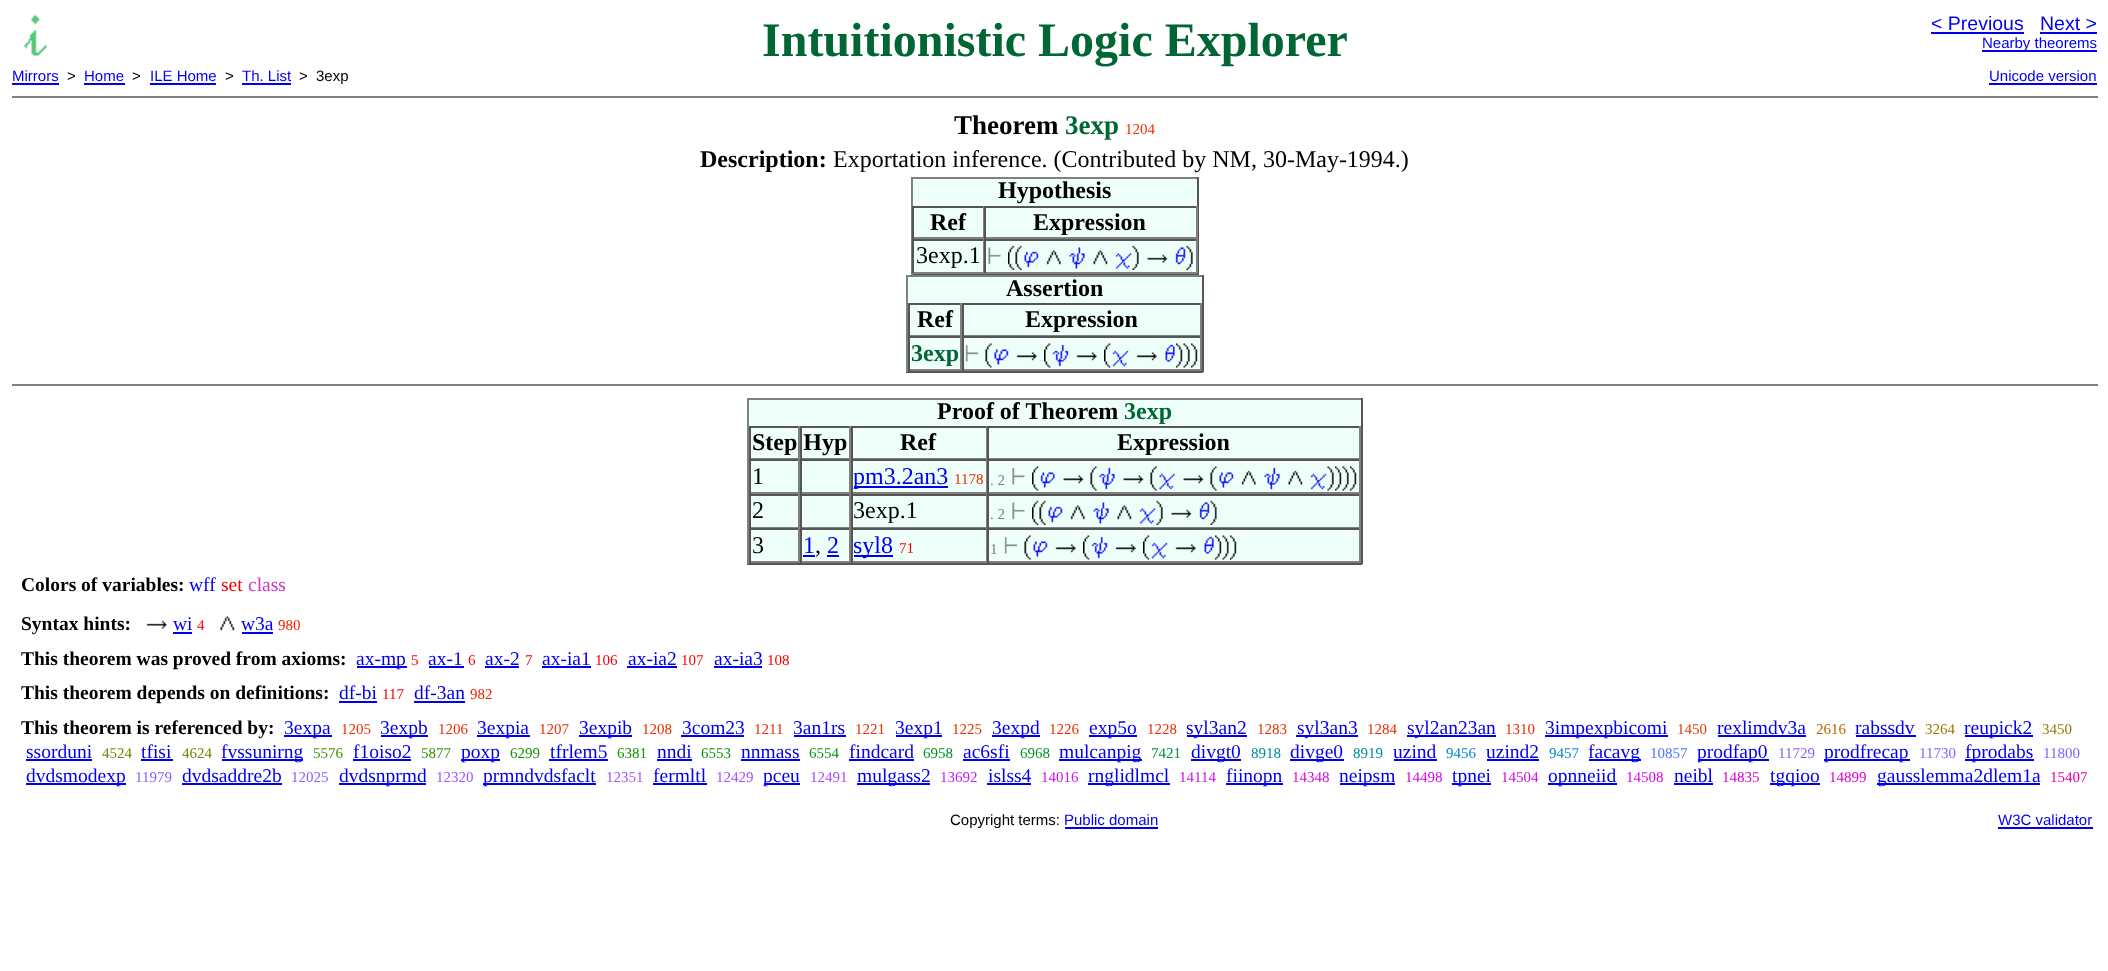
async function draw(canvas) {
  canvas.width = 2108
  canvas.height = 971
  const ctx = canvas.getContext('2d')
  ctx.miterLimit = 4
  ctx.fontKerning = 'normal'
  async function loadImage(src) {
    const img = new Image()
    img.src = src
    await img.decode()
    return img
  }

  ctx.fillStyle = '#fff'
  ctx.fillRect(0, 0, 2108, 971)
  ctx.drawImage(await loadImage('image0.png'), 23, 14, 24, 42)
  ctx.font = 'bold 48px Liberation Serif'
  ctx.fillStyle = '#063'
  ctx.fillText('Intuitionistic Logic Explorer', 762, 56)
  ctx.font = '19.5px Liberation Sans'
  ctx.fillStyle = '#00e'
  ctx.fillText('< Previous', 1931, 30)
  ctx.fillRect(1931, 32, 93, 2)
  ctx.fillText('Next >', 2040, 30)
  ctx.fillRect(2040, 32, 57, 2)
  ctx.fillRect(1982, 50, 115, 2)
  ctx.font = '15px Liberation Sans'
  ctx.fillText('Nearby theorems', 1982, 48)
  ctx.fillText('Mirrors', 12, 81)
  ctx.fillRect(12, 83, 47, 2)
  ctx.fillStyle = '#000'
  ctx.fillText('>', 67, 81)
  ctx.fillStyle = '#00e'
  ctx.fillText('Home', 84, 81)
  ctx.fillRect(84, 83, 41, 2)
  ctx.fillStyle = '#000'
  ctx.fillText('>', 132, 81)
  ctx.fillStyle = '#00e'
  ctx.fillText('ILE Home', 150, 81)
  ctx.fillRect(150, 83, 66, 2)
  ctx.fillStyle = '#000'
  ctx.fillText('>', 225, 81)
  ctx.fillStyle = '#00e'
  ctx.fillText('Th. List', 242, 81)
  ctx.fillRect(242, 83, 49, 2)
  ctx.fillStyle = '#000'
  ctx.fillText('>', 299, 81)
  ctx.fillText('3exp', 316, 81)
  ctx.fillStyle = '#00e'
  ctx.fillText('Unicode version', 1989, 81)
  ctx.fillRect(1989, 83, 108, 2)
  ctx.fillStyle = '#808080'
  ctx.fillRect(12, 96, 2086, 2)
  ctx.font = 'bold 27px Liberation Serif'
  ctx.fillStyle = '#000'
  ctx.fillText('Theorem', 954, 134)
  ctx.fillStyle = '#063'
  ctx.fillText('3exp', 1065, 134)
  ctx.font = '15px Liberation Serif'
  ctx.fillStyle = '#eb2f00'
  ctx.fillText('1204', 1125, 134)
  ctx.font = 'bold 24px Liberation Serif'
  ctx.fillStyle = '#000'
  ctx.fillText('Description:', 700, 167)
  ctx.font = '24px Liberation Serif'
  ctx.fillText('Exportation inference. (Contributed by NM, 30-May-1994.)', 833, 167)
  ctx.fillStyle = '#eefffa'
  ctx.fillRect(913, 179, 284, 93)
  ctx.fillStyle = '#808080'
  ctx.fillRect(911, 177, 288, 2)
  ctx.fillStyle = '#555'
  ctx.fillRect(1197, 177, 2, 98)
  ctx.fillRect(911, 273, 288, 2)
  ctx.fillStyle = '#808080'
  ctx.fillRect(911, 177, 2, 98)
  ctx.font = 'bold 24px Liberation Serif'
  ctx.fillStyle = '#000'
  ctx.fillText('Hypothesis', 998, 198)
  ctx.fillStyle = '#555'
  ctx.fillRect(912, 206, 285, 2)
  ctx.fillStyle = '#808080'
  ctx.fillRect(983, 206, 1, 33)
  ctx.fillRect(912, 237, 72, 2)
  ctx.fillStyle = '#555'
  ctx.fillRect(912, 206, 2, 33)
  ctx.fillStyle = '#000'
  ctx.fillText('Ref', 930, 230)
  ctx.fillStyle = '#808080'
  ctx.fillRect(1196, 206, 2, 33)
  ctx.fillRect(984, 237, 213, 2)
  ctx.fillStyle = '#555'
  ctx.fillRect(984, 206, 2, 33)
  ctx.fillStyle = '#000'
  ctx.fillText('Expression', 1033, 230)
  ctx.fillStyle = '#555'
  ctx.fillRect(912, 239, 285, 2)
  ctx.fillStyle = '#808080'
  ctx.fillRect(983, 239, 1, 34)
  ctx.fillRect(912, 272, 72, 2)
  ctx.fillStyle = '#555'
  ctx.fillRect(912, 239, 2, 34)
  ctx.font = '24px Liberation Serif'
  ctx.fillStyle = '#000'
  ctx.fillText('3exp.1', 916, 263)
  ctx.fillStyle = '#808080'
  ctx.fillRect(1196, 239, 2, 34)
  ctx.fillRect(984, 272, 213, 2)
  ctx.fillStyle = '#555'
  ctx.fillRect(984, 239, 2, 34)
  ctx.drawImage(await loadImage('image1.png'), 988, 247, 13, 18)
  ctx.drawImage(await loadImage('image2.png'), 1008, 245, 7, 25)
  ctx.drawImage(await loadImage('image3.png'), 1015, 245, 7, 25)
  ctx.drawImage(await loadImage('image4.png'), 1024, 251, 15, 17)
  ctx.drawImage(await loadImage('image5.png'), 1046, 250, 15, 15)
  ctx.drawImage(await loadImage('image6.png'), 1069, 247, 16, 22)
  ctx.drawImage(await loadImage('image7.png'), 1093, 250, 15, 15)
  ctx.drawImage(await loadImage('image8.png'), 1115, 253, 17, 16)
  ctx.drawImage(await loadImage('image9.png'), 1132, 245, 7, 25)
  ctx.drawImage(await loadImage('image10.png'), 1147, 254, 21, 9)
  ctx.drawImage(await loadImage('image11.png'), 1175, 247, 11, 18)
  ctx.drawImage(await loadImage('image9.png'), 1186, 245, 7, 25)
  ctx.fillStyle = '#eefffa'
  ctx.fillRect(908, 277, 294, 92)
  ctx.fillStyle = '#808080'
  ctx.fillRect(906, 275, 297, 2)
  ctx.fillStyle = '#555'
  ctx.fillRect(1202, 275, 2, 97)
  ctx.fillRect(906, 371, 297, 2)
  ctx.fillStyle = '#808080'
  ctx.fillRect(906, 275, 2, 97)
  ctx.font = 'bold 24px Liberation Serif'
  ctx.fillStyle = '#000'
  ctx.fillText('Assertion', 1006, 296)
  ctx.fillStyle = '#555'
  ctx.fillRect(908, 303, 294, 2)
  ctx.fillStyle = '#808080'
  ctx.fillRect(960, 303, 2, 33)
  ctx.fillRect(908, 335, 54, 1)
  ctx.fillStyle = '#555'
  ctx.fillRect(908, 303, 2, 33)
  ctx.fillStyle = '#000'
  ctx.fillText('Ref', 917, 327)
  ctx.fillStyle = '#808080'
  ctx.fillRect(1200, 303, 2, 33)
  ctx.fillRect(962, 335, 240, 1)
  ctx.fillStyle = '#555'
  ctx.fillRect(962, 303, 2, 33)
  ctx.fillStyle = '#000'
  ctx.fillText('Expression', 1025, 327)
  ctx.fillStyle = '#555'
  ctx.fillRect(908, 336, 294, 2)
  ctx.fillStyle = '#808080'
  ctx.fillRect(960, 336, 2, 35)
  ctx.fillRect(908, 369, 54, 2)
  ctx.fillStyle = '#555'
  ctx.fillRect(908, 336, 2, 35)
  ctx.fillStyle = '#063'
  ctx.fillText('3exp', 911, 361)
  ctx.fillStyle = '#808080'
  ctx.fillRect(1200, 336, 2, 35)
  ctx.fillRect(962, 369, 240, 2)
  ctx.fillStyle = '#555'
  ctx.fillRect(962, 336, 2, 35)
  ctx.drawImage(await loadImage('image12.png'), 965, 344, 14, 18)
  ctx.drawImage(await loadImage('image13.png'), 985, 343, 7, 25)
  ctx.drawImage(await loadImage('image14.png'), 994, 349, 15, 16)
  ctx.drawImage(await loadImage('image15.png'), 1016, 352, 21, 9)
  ctx.drawImage(await loadImage('image16.png'), 1044, 343, 7, 25)
  ctx.drawImage(await loadImage('image17.png'), 1052, 344, 17, 23)
  ctx.drawImage(await loadImage('image15.png'), 1076, 352, 21, 9)
  ctx.drawImage(await loadImage('image16.png'), 1104, 343, 7, 25)
  ctx.drawImage(await loadImage('image18.png'), 1112, 350, 17, 17)
  ctx.drawImage(await loadImage('image19.png'), 1136, 352, 21, 9)
  ctx.drawImage(await loadImage('image20.png'), 1165, 344, 10, 18)
  ctx.drawImage(await loadImage('image21.png'), 1176, 343, 7, 25)
  ctx.drawImage(await loadImage('image22.png'), 1183, 343, 7, 25)
  ctx.drawImage(await loadImage('image21.png'), 1191, 343, 7, 25)
  ctx.fillStyle = '#808080'
  ctx.fillRect(12, 384, 2086, 2)
  ctx.fillStyle = '#eefffa'
  ctx.fillRect(749, 400, 612, 161)
  ctx.fillStyle = '#808080'
  ctx.fillRect(747, 398, 615, 2)
  ctx.fillStyle = '#555'
  ctx.fillRect(1361, 398, 2, 166)
  ctx.fillRect(747, 563, 615, 2)
  ctx.fillStyle = '#808080'
  ctx.fillRect(747, 398, 2, 166)
  ctx.fillStyle = '#000'
  ctx.fillText('Proof of Theorem', 937, 419)
  ctx.fillStyle = '#063'
  ctx.fillText('3exp', 1124, 419)
  ctx.fillStyle = '#555'
  ctx.fillRect(749, 426, 612, 2)
  ctx.fillStyle = '#808080'
  ctx.fillRect(849, 426, 2, 33)
  ctx.fillRect(800, 458, 51, 1)
  ctx.fillStyle = '#555'
  ctx.fillRect(800, 426, 2, 33)
  ctx.fillStyle = '#808080'
  ctx.fillRect(986, 426, 1, 33)
  ctx.fillRect(851, 458, 136, 1)
  ctx.fillStyle = '#555'
  ctx.fillRect(851, 426, 2, 33)
  ctx.fillStyle = '#000'
  ctx.fillText('Ref', 900, 450)
  ctx.fillStyle = '#808080'
  ctx.fillRect(1359, 426, 2, 33)
  ctx.fillRect(987, 458, 374, 1)
  ctx.fillStyle = '#555'
  ctx.fillRect(987, 426, 2, 33)
  ctx.fillStyle = '#000'
  ctx.fillText('Expression', 1117, 450)
  ctx.fillStyle = '#808080'
  ctx.fillRect(798, 426, 2, 33)
  ctx.fillRect(749, 458, 51, 1)
  ctx.fillStyle = '#555'
  ctx.fillRect(749, 426, 2, 33)
  ctx.fillStyle = '#000'
  ctx.fillText('Step Hyp', 752, 450)
  ctx.fillStyle = '#555'
  ctx.fillRect(749, 459, 612, 2)
  ctx.fillStyle = '#808080'
  ctx.fillRect(798, 459, 2, 35)
  ctx.fillRect(749, 492, 51, 2)
  ctx.fillStyle = '#555'
  ctx.fillRect(749, 459, 2, 35)
  ctx.font = '24px Liberation Serif'
  ctx.fillStyle = '#000'
  ctx.fillText('1', 752, 484)
  ctx.fillStyle = '#808080'
  ctx.fillRect(849, 459, 2, 35)
  ctx.fillRect(800, 492, 51, 2)
  ctx.fillStyle = '#555'
  ctx.fillRect(800, 459, 2, 35)
  ctx.fillStyle = '#808080'
  ctx.fillRect(986, 459, 1, 35)
  ctx.fillRect(851, 492, 136, 2)
  ctx.fillStyle = '#555'
  ctx.fillRect(851, 459, 2, 35)
  ctx.fillStyle = '#00e'
  ctx.fillRect(854, 486, 94, 2)
  ctx.fillText('pm3.2an3', 853, 484)
  ctx.font = '15px Liberation Serif'
  ctx.fillStyle = '#eb2f00'
  ctx.fillText('1178', 954, 484)
  ctx.fillStyle = '#808080'
  ctx.fillRect(1359, 459, 2, 35)
  ctx.fillRect(987, 492, 374, 2)
  ctx.fillStyle = '#555'
  ctx.fillRect(987, 459, 2, 35)
  ctx.fillStyle = '#808080'
  ctx.fillText('. 2', 990, 485)
  ctx.drawImage(await loadImage('image23.png'), 1012, 467, 13, 18)
  ctx.drawImage(await loadImage('image16.png'), 1032, 466, 7, 25)
  ctx.drawImage(await loadImage('image24.png'), 1040, 472, 15, 16)
  ctx.drawImage(await loadImage('image25.png'), 1063, 475, 21, 9)
  ctx.drawImage(await loadImage('image13.png'), 1090, 466, 7, 25)
  ctx.drawImage(await loadImage('image26.png'), 1099, 467, 16, 23)
  ctx.drawImage(await loadImage('image25.png'), 1123, 475, 21, 9)
  ctx.drawImage(await loadImage('image27.png'), 1150, 466, 7, 25)
  ctx.drawImage(await loadImage('image28.png'), 1159, 473, 16, 17)
  ctx.drawImage(await loadImage('image25.png'), 1183, 475, 21, 9)
  ctx.drawImage(await loadImage('image13.png'), 1210, 466, 7, 25)
  ctx.drawImage(await loadImage('image29.png'), 1219, 472, 15, 16)
  ctx.drawImage(await loadImage('image30.png'), 1241, 470, 15, 15)
  ctx.drawImage(await loadImage('image31.png'), 1264, 467, 16, 23)
  ctx.drawImage(await loadImage('image32.png'), 1288, 470, 15, 15)
  ctx.drawImage(await loadImage('image33.png'), 1310, 473, 17, 17)
  ctx.drawImage(await loadImage('image22.png'), 1327, 466, 7, 25)
  ctx.drawImage(await loadImage('image21.png'), 1335, 466, 7, 25)
  ctx.drawImage(await loadImage('image22.png'), 1342, 466, 7, 25)
  ctx.drawImage(await loadImage('image21.png'), 1350, 466, 7, 25)
  ctx.fillStyle = '#555'
  ctx.fillRect(749, 494, 612, 2)
  ctx.fillStyle = '#808080'
  ctx.fillRect(798, 494, 2, 34)
  ctx.fillRect(749, 527, 51, 1)
  ctx.fillStyle = '#555'
  ctx.fillRect(749, 494, 2, 34)
  ctx.font = '24px Liberation Serif'
  ctx.fillStyle = '#000'
  ctx.fillText('2', 752, 518)
  ctx.fillStyle = '#808080'
  ctx.fillRect(849, 494, 2, 34)
  ctx.fillRect(800, 527, 51, 1)
  ctx.fillStyle = '#555'
  ctx.fillRect(800, 494, 2, 34)
  ctx.fillStyle = '#808080'
  ctx.fillRect(986, 494, 1, 34)
  ctx.fillRect(851, 527, 136, 1)
  ctx.fillStyle = '#555'
  ctx.fillRect(851, 494, 2, 34)
  ctx.fillStyle = '#000'
  ctx.fillText('3exp.1', 853, 518)
  ctx.fillStyle = '#808080'
  ctx.fillRect(1359, 494, 2, 34)
  ctx.fillRect(987, 527, 374, 1)
  ctx.fillStyle = '#555'
  ctx.fillRect(987, 494, 2, 34)
  ctx.font = '15px Liberation Serif'
  ctx.fillStyle = '#808080'
  ctx.fillText('. 2', 990, 519)
  ctx.drawImage(await loadImage('image1.png'), 1012, 502, 13, 18)
  ctx.drawImage(await loadImage('image34.png'), 1032, 500, 7, 25)
  ctx.drawImage(await loadImage('image3.png'), 1039, 500, 7, 25)
  ctx.drawImage(await loadImage('image4.png'), 1048, 506, 15, 17)
  ctx.drawImage(await loadImage('image35.png'), 1070, 505, 15, 15)
  ctx.drawImage(await loadImage('image6.png'), 1093, 502, 16, 22)
  ctx.drawImage(await loadImage('image7.png'), 1117, 505, 15, 15)
  ctx.drawImage(await loadImage('image8.png'), 1139, 508, 17, 16)
  ctx.drawImage(await loadImage('image9.png'), 1156, 500, 7, 25)
  ctx.drawImage(await loadImage('image10.png'), 1171, 509, 21, 9)
  ctx.drawImage(await loadImage('image11.png'), 1199, 502, 11, 18)
  ctx.drawImage(await loadImage('image36.png'), 1210, 500, 7, 25)
  ctx.fillStyle = '#555'
  ctx.fillRect(749, 528, 612, 2)
  ctx.fillStyle = '#808080'
  ctx.fillRect(798, 528, 2, 35)
  ctx.fillRect(749, 561, 51, 2)
  ctx.fillStyle = '#555'
  ctx.fillRect(749, 528, 2, 35)
  ctx.font = '24px Liberation Serif'
  ctx.fillStyle = '#000'
  ctx.fillText('3', 752, 553)
  ctx.fillStyle = '#808080'
  ctx.fillRect(849, 528, 2, 35)
  ctx.fillRect(800, 561, 51, 2)
  ctx.fillStyle = '#555'
  ctx.fillRect(800, 528, 2, 35)
  ctx.fillStyle = '#00e'
  ctx.fillText('1', 803, 553)
  ctx.fillRect(803, 555, 12, 2)
  ctx.fillStyle = '#000'
  ctx.fillText(',', 815, 553)
  ctx.fillStyle = '#00e'
  ctx.fillText('2', 827, 553)
  ctx.fillRect(827, 555, 12, 2)
  ctx.fillStyle = '#808080'
  ctx.fillRect(986, 528, 1, 35)
  ctx.fillRect(851, 561, 136, 2)
  ctx.fillStyle = '#555'
  ctx.fillRect(851, 528, 2, 35)
  ctx.fillStyle = '#00e'
  ctx.fillRect(854, 555, 39, 2)
  ctx.fillText('syl8', 853, 553)
  ctx.font = '15px Liberation Serif'
  ctx.fillStyle = '#fa0100'
  ctx.fillText('71', 899, 553)
  ctx.fillStyle = '#808080'
  ctx.fillRect(1359, 528, 2, 35)
  ctx.fillRect(987, 561, 374, 2)
  ctx.fillStyle = '#555'
  ctx.fillRect(987, 528, 2, 35)
  ctx.fillStyle = '#808080'
  ctx.fillText('1', 990, 554)
  ctx.drawImage(await loadImage('image12.png'), 1004, 536, 14, 18)
  ctx.drawImage(await loadImage('image27.png'), 1024, 535, 7, 25)
  ctx.drawImage(await loadImage('image29.png'), 1033, 541, 15, 16)
  ctx.drawImage(await loadImage('image19.png'), 1055, 544, 21, 9)
  ctx.drawImage(await loadImage('image16.png'), 1083, 535, 7, 25)
  ctx.drawImage(await loadImage('image37.png'), 1091, 536, 17, 23)
  ctx.drawImage(await loadImage('image19.png'), 1115, 544, 21, 9)
  ctx.drawImage(await loadImage('image16.png'), 1143, 535, 7, 25)
  ctx.drawImage(await loadImage('image33.png'), 1151, 542, 17, 17)
  ctx.drawImage(await loadImage('image19.png'), 1175, 544, 21, 9)
  ctx.drawImage(await loadImage('image20.png'), 1204, 536, 10, 18)
  ctx.drawImage(await loadImage('image21.png'), 1215, 535, 7, 25)
  ctx.drawImage(await loadImage('image38.png'), 1222, 535, 7, 25)
  ctx.drawImage(await loadImage('image21.png'), 1230, 535, 7, 25)
  ctx.font = 'bold 19.5px Liberation Serif'
  ctx.fillStyle = '#000'
  ctx.fillText('Colors of variables:', 21, 591)
  ctx.font = '19.5px Liberation Serif'
  ctx.fillStyle = '#00f'
  ctx.fillText('wff', 189, 591)
  ctx.fillStyle = '#fa0100'
  ctx.fillText('set', 221, 591)
  ctx.fillStyle = '#c3c'
  ctx.fillText('class', 248, 591)
  ctx.font = 'bold 19.5px Liberation Serif'
  ctx.fillStyle = '#000'
  ctx.fillText('Syntax hints:', 21, 630)
  ctx.drawImage(await loadImage('image39.png'), 146, 620, 21, 9)
  ctx.font = '19.5px Liberation Serif'
  ctx.fillStyle = '#00e'
  ctx.fillText('wi', 173, 630)
  ctx.fillRect(173, 632, 19, 2)
  ctx.font = '15px Liberation Serif'
  ctx.fillStyle = '#fa0100'
  ctx.fillText('4', 197, 630)
  ctx.drawImage(await loadImage('image40.png'), 220, 616, 15, 15)
  ctx.font = '19.5px Liberation Serif'
  ctx.fillStyle = '#00e'
  ctx.fillText('w3a', 241, 630)
  ctx.fillRect(242, 632, 31, 2)
  ctx.font = '15px Liberation Serif'
  ctx.fillStyle = '#f02300'
  ctx.fillText('980', 278, 630)
  ctx.font = 'bold 19.5px Liberation Serif'
  ctx.fillStyle = '#000'
  ctx.fillText('This theorem was proved from axioms:', 21, 665)
  ctx.fillStyle = '#00e'
  ctx.fillRect(357, 666, 50, 2)
  ctx.font = '19.5px Liberation Serif'
  ctx.fillText('ax-mp', 356, 665)
  ctx.font = '15px Liberation Serif'
  ctx.fillStyle = '#fa0100'
  ctx.fillText('5', 411, 665)
  ctx.font = '19.5px Liberation Serif'
  ctx.fillStyle = '#00e'
  ctx.fillText('ax-1', 428, 665)
  ctx.fillRect(429, 666, 35, 2)
  ctx.font = '15px Liberation Serif'
  ctx.fillStyle = '#fa0100'
  ctx.fillText('6', 468, 665)
  ctx.font = '19.5px Liberation Serif'
  ctx.fillStyle = '#00e'
  ctx.fillText('ax-2', 485, 665)
  ctx.fillRect(485, 666, 34, 2)
  ctx.font = '15px Liberation Serif'
  ctx.fillStyle = '#fa0100'
  ctx.fillText('7', 525, 665)
  ctx.font = '19.5px Liberation Serif'
  ctx.fillStyle = '#00e'
  ctx.fillText('ax-ia1', 542, 665)
  ctx.fillRect(542, 666, 49, 2)
  ctx.font = '15px Liberation Serif'
  ctx.fillStyle = '#fa0100'
  ctx.fillText('106', 595, 665)
  ctx.font = '19.5px Liberation Serif'
  ctx.fillStyle = '#00e'
  ctx.fillText('ax-ia2', 628, 665)
  ctx.fillRect(627, 666, 50, 2)
  ctx.font = '15px Liberation Serif'
  ctx.fillStyle = '#fa0100'
  ctx.fillText('107', 681, 665)
  ctx.font = '19.5px Liberation Serif'
  ctx.fillStyle = '#00e'
  ctx.fillText('ax-ia3', 714, 665)
  ctx.fillRect(714, 666, 48, 2)
  ctx.font = '15px Liberation Serif'
  ctx.fillStyle = '#fa0100'
  ctx.fillText('108', 767, 665)
  ctx.font = 'bold 19.5px Liberation Serif'
  ctx.fillStyle = '#000'
  ctx.fillText('This theorem depends on definitions:', 21, 699)
  ctx.font = '19.5px Liberation Serif'
  ctx.fillStyle = '#00e'
  ctx.fillText('df-bi', 339, 699)
  ctx.fillRect(339, 701, 38, 2)
  ctx.font = '15px Liberation Serif'
  ctx.fillStyle = '#fa0100'
  ctx.fillText('117', 382, 699)
  ctx.font = '19.5px Liberation Serif'
  ctx.fillStyle = '#00e'
  ctx.fillText('df-3an', 414, 699)
  ctx.fillRect(414, 701, 51, 2)
  ctx.font = '15px Liberation Serif'
  ctx.fillStyle = '#f02300'
  ctx.fillText('982', 470, 699)
  ctx.font = 'bold 19.5px Liberation Serif'
  ctx.fillStyle = '#000'
  ctx.fillText('This theorem is referenced by:', 21, 734)
  ctx.fillStyle = '#00e'
  ctx.fillRect(284, 735, 48, 2)
  ctx.font = '19.5px Liberation Serif'
  ctx.fillText('3expa', 284, 734)
  ctx.font = '15px Liberation Serif'
  ctx.fillStyle = '#eb2f00'
  ctx.fillText('1205', 341, 734)
  ctx.fillStyle = '#00e'
  ctx.fillRect(381, 735, 47, 2)
  ctx.font = '19.5px Liberation Serif'
  ctx.fillText('3expb', 380, 734)
  ctx.font = '15px Liberation Serif'
  ctx.fillStyle = '#eb2f00'
  ctx.fillText('1206', 438, 734)
  ctx.fillStyle = '#00e'
  ctx.fillRect(477, 735, 53, 2)
  ctx.font = '19.5px Liberation Serif'
  ctx.fillText('3expia', 477, 734)
  ctx.font = '15px Liberation Serif'
  ctx.fillStyle = '#eb2f00'
  ctx.fillText('1207', 539, 734)
  ctx.fillStyle = '#00e'
  ctx.fillRect(579, 735, 53, 2)
  ctx.font = '19.5px Liberation Serif'
  ctx.fillText('3expib', 579, 734)
  ctx.font = '15px Liberation Serif'
  ctx.fillStyle = '#eb2f00'
  ctx.fillText('1208', 642, 734)
  ctx.font = '19.5px Liberation Serif'
  ctx.fillStyle = '#00e'
  ctx.fillText('3com23', 682, 734)
  ctx.fillRect(681, 735, 63, 2)
  ctx.font = '15px Liberation Serif'
  ctx.fillStyle = '#eb2f00'
  ctx.fillText('1211', 754, 734)
  ctx.font = '19.5px Liberation Serif'
  ctx.fillStyle = '#00e'
  ctx.fillText('3an1rs', 793, 734)
  ctx.fillRect(794, 735, 52, 2)
  ctx.font = '15px Liberation Serif'
  ctx.fillStyle = '#eb2f00'
  ctx.fillText('1221', 855, 734)
  ctx.fillStyle = '#00e'
  ctx.fillRect(896, 735, 46, 2)
  ctx.font = '19.5px Liberation Serif'
  ctx.fillText('3exp1', 895, 734)
  ctx.font = '15px Liberation Serif'
  ctx.fillStyle = '#eb2f00'
  ctx.fillText('1225', 952, 734)
  ctx.fillStyle = '#00e'
  ctx.fillRect(992, 735, 48, 2)
  ctx.font = '19.5px Liberation Serif'
  ctx.fillText('3expd', 992, 734)
  ctx.font = '15px Liberation Serif'
  ctx.fillStyle = '#eb2f00'
  ctx.fillText('1226', 1049, 734)
  ctx.fillStyle = '#00e'
  ctx.fillRect(1089, 735, 48, 2)
  ctx.font = '19.5px Liberation Serif'
  ctx.fillText('exp5o', 1089, 734)
  ctx.font = '15px Liberation Serif'
  ctx.fillStyle = '#eb2f00'
  ctx.fillText('1228', 1147, 734)
  ctx.fillStyle = '#00e'
  ctx.fillRect(1187, 735, 60, 2)
  ctx.font = '19.5px Liberation Serif'
  ctx.fillText('syl3an2', 1186, 734)
  ctx.font = '15px Liberation Serif'
  ctx.fillStyle = '#eb2f00'
  ctx.fillText('1283', 1257, 734)
  ctx.fillStyle = '#00e'
  ctx.fillRect(1296, 735, 62, 2)
  ctx.font = '19.5px Liberation Serif'
  ctx.fillText('syl3an3', 1297, 734)
  ctx.font = '15px Liberation Serif'
  ctx.fillStyle = '#eb2f00'
  ctx.fillText('1284', 1367, 734)
  ctx.fillStyle = '#00e'
  ctx.fillRect(1407, 735, 89, 2)
  ctx.font = '19.5px Liberation Serif'
  ctx.fillText('syl2an23an', 1407, 734)
  ctx.font = '15px Liberation Serif'
  ctx.fillStyle = '#eb2f00'
  ctx.fillText('1310', 1505, 734)
  ctx.fillStyle = '#00e'
  ctx.fillRect(1545, 735, 123, 2)
  ctx.font = '19.5px Liberation Serif'
  ctx.fillText('3impexpbicomi', 1545, 734)
  ctx.font = '15px Liberation Serif'
  ctx.fillStyle = '#e53b00'
  ctx.fillText('1450', 1677, 734)
  ctx.font = '19.5px Liberation Serif'
  ctx.fillStyle = '#00e'
  ctx.fillText('rexlimdv3a', 1717, 734)
  ctx.fillRect(1718, 735, 88, 2)
  ctx.font = '15px Liberation Serif'
  ctx.fillStyle = '#bb6400'
  ctx.fillText('2616', 1816, 734)
  ctx.font = '19.5px Liberation Serif'
  ctx.fillStyle = '#00e'
  ctx.fillText('rabssdv', 1855, 734)
  ctx.fillRect(1856, 735, 60, 2)
  ctx.font = '15px Liberation Serif'
  ctx.fillStyle = '#9f7600'
  ctx.fillText('3264', 1925, 734)
  ctx.fillStyle = '#00e'
  ctx.fillRect(1965, 735, 68, 2)
  ctx.font = '19.5px Liberation Serif'
  ctx.fillText('reupick2', 1964, 734)
  ctx.font = '15px Liberation Serif'
  ctx.fillStyle = '#977a00'
  ctx.fillText('3450', 2042, 734)
  ctx.font = '19.5px Liberation Serif'
  ctx.fillStyle = '#00e'
  ctx.fillText('ssorduni', 26, 758)
  ctx.fillRect(26, 759, 66, 2)
  ctx.font = '15px Liberation Serif'
  ctx.fillStyle = '#6e8700'
  ctx.fillText('4524', 102, 758)
  ctx.font = '19.5px Liberation Serif'
  ctx.fillStyle = '#00e'
  ctx.fillText('tfisi', 141, 758)
  ctx.fillRect(141, 759, 32, 2)
  ctx.font = '15px Liberation Serif'
  ctx.fillStyle = '#6e8700'
  ctx.fillText('4624', 182, 758)
  ctx.fillStyle = '#00e'
  ctx.fillRect(222, 759, 81, 2)
  ctx.font = '19.5px Liberation Serif'
  ctx.fillText('fvssunirng', 221, 758)
  ctx.font = '15px Liberation Serif'
  ctx.fillStyle = '#3f8f00'
  ctx.fillText('5576', 313, 758)
  ctx.font = '19.5px Liberation Serif'
  ctx.fillStyle = '#00e'
  ctx.fillText('f1oiso2', 353, 758)
  ctx.fillRect(353, 759, 58, 2)
  ctx.font = '15px Liberation Serif'
  ctx.fillStyle = '#309100'
  ctx.fillText('5877', 421, 758)
  ctx.fillStyle = '#00e'
  ctx.fillRect(461, 759, 39, 2)
  ctx.font = '19.5px Liberation Serif'
  ctx.fillText('poxp', 461, 758)
  ctx.font = '15px Liberation Serif'
  ctx.fillStyle = '#1a9302'
  ctx.fillText('6299', 510, 758)
  ctx.font = '19.5px Liberation Serif'
  ctx.fillStyle = '#00e'
  ctx.fillText('tfrlem5', 550, 758)
  ctx.fillRect(549, 759, 59, 2)
  ctx.font = '15px Liberation Serif'
  ctx.fillStyle = '#1a9302'
  ctx.fillText('6381', 617, 758)
  ctx.font = '19.5px Liberation Serif'
  ctx.fillStyle = '#00e'
  ctx.fillText('nndi', 657, 758)
  ctx.fillRect(657, 759, 35, 2)
  ctx.font = '15px Liberation Serif'
  ctx.fillStyle = '#0c930c'
  ctx.fillText('6553', 701, 758)
  ctx.font = '19.5px Liberation Serif'
  ctx.fillStyle = '#00e'
  ctx.fillText('nnmass', 741, 758)
  ctx.fillRect(741, 759, 59, 2)
  ctx.font = '15px Liberation Serif'
  ctx.fillStyle = '#0c930c'
  ctx.fillText('6554', 809, 758)
  ctx.font = '19.5px Liberation Serif'
  ctx.fillStyle = '#00e'
  ctx.fillText('findcard', 849, 758)
  ctx.fillRect(849, 759, 65, 2)
  ctx.font = '15px Liberation Serif'
  ctx.fillStyle = '#009321'
  ctx.fillText('6958', 923, 758)
  ctx.font = '19.5px Liberation Serif'
  ctx.fillStyle = '#00e'
  ctx.fillText('ac6sfi', 963, 758)
  ctx.fillRect(963, 759, 47, 2)
  ctx.font = '15px Liberation Serif'
  ctx.fillStyle = '#009321'
  ctx.fillText('6968', 1020, 758)
  ctx.fillStyle = '#00e'
  ctx.fillRect(1059, 759, 83, 2)
  ctx.font = '19.5px Liberation Serif'
  ctx.fillText('mulcanpig', 1059, 758)
  ctx.font = '15px Liberation Serif'
  ctx.fillStyle = '#009140'
  ctx.fillText('7421', 1151, 758)
  ctx.fillStyle = '#00e'
  ctx.fillRect(1191, 759, 50, 2)
  ctx.font = '19.5px Liberation Serif'
  ctx.fillText('divgt0', 1191, 758)
  ctx.font = '15px Liberation Serif'
  ctx.fillStyle = '#008c9b'
  ctx.fillText('8918', 1251, 758)
  ctx.fillStyle = '#00e'
  ctx.fillRect(1290, 759, 54, 2)
  ctx.font = '19.5px Liberation Serif'
  ctx.fillText('divge0', 1290, 758)
  ctx.font = '15px Liberation Serif'
  ctx.fillStyle = '#008c9b'
  ctx.fillText('8919', 1353, 758)
  ctx.font = '19.5px Liberation Serif'
  ctx.fillStyle = '#00e'
  ctx.fillText('uzind', 1393, 758)
  ctx.fillRect(1394, 759, 43, 2)
  ctx.font = '15px Liberation Serif'
  ctx.fillStyle = '#0087ca'
  ctx.fillText('9456', 1446, 758)
  ctx.font = '19.5px Liberation Serif'
  ctx.fillStyle = '#00e'
  ctx.fillText('uzind2', 1486, 758)
  ctx.fillRect(1487, 759, 52, 2)
  ctx.font = '15px Liberation Serif'
  ctx.fillStyle = '#0087ca'
  ctx.fillText('9457', 1549, 758)
  ctx.fillStyle = '#00e'
  ctx.fillRect(1589, 759, 52, 2)
  ctx.font = '19.5px Liberation Serif'
  ctx.fillText('facavg', 1588, 758)
  ctx.font = '15px Liberation Serif'
  ctx.fillStyle = '#4e75ff'
  ctx.fillText('10857', 1650, 758)
  ctx.fillStyle = '#00e'
  ctx.fillRect(1698, 759, 71, 2)
  ctx.font = '19.5px Liberation Serif'
  ctx.fillText('prodfap0', 1697, 758)
  ctx.font = '15px Liberation Serif'
  ctx.fillStyle = '#8165ff'
  ctx.fillText('11729', 1778, 758)
  ctx.fillStyle = '#00e'
  ctx.fillRect(1824, 759, 86, 2)
  ctx.font = '19.5px Liberation Serif'
  ctx.fillText('prodfrecap', 1824, 758)
  ctx.font = '15px Liberation Serif'
  ctx.fillStyle = '#8165ff'
  ctx.fillText('11730', 1919, 758)
  ctx.fillStyle = '#00e'
  ctx.fillRect(1965, 759, 69, 2)
  ctx.font = '19.5px Liberation Serif'
  ctx.fillText('fprodabs', 1965, 758)
  ctx.font = '15px Liberation Serif'
  ctx.fillStyle = '#8165ff'
  ctx.fillText('11800', 2043, 758)
  ctx.fillStyle = '#00e'
  ctx.fillRect(26, 783, 100, 2)
  ctx.font = '19.5px Liberation Serif'
  ctx.fillText('dvdsmodexp', 26, 782)
  ctx.font = '15px Liberation Serif'
  ctx.fillStyle = '#8e5fff'
  ctx.fillText('11979', 135, 782)
  ctx.font = '19.5px Liberation Serif'
  ctx.fillStyle = '#00e'
  ctx.fillText('dvdsaddre2b', 182, 782)
  ctx.fillRect(182, 783, 100, 2)
  ctx.font = '15px Liberation Serif'
  ctx.fillStyle = '#8e5fff'
  ctx.fillText('12025', 291, 782)
  ctx.fillStyle = '#00e'
  ctx.fillRect(339, 783, 87, 2)
  ctx.font = '19.5px Liberation Serif'
  ctx.fillText('dvdsnprmd', 339, 782)
  ctx.font = '15px Liberation Serif'
  ctx.fillStyle = '#a152ff'
  ctx.fillText('12320', 436, 782)
  ctx.fillStyle = '#00e'
  ctx.fillRect(483, 783, 113, 2)
  ctx.font = '19.5px Liberation Serif'
  ctx.fillText('prmndvdsfaclt', 483, 782)
  ctx.font = '15px Liberation Serif'
  ctx.fillStyle = '#a152ff'
  ctx.fillText('12351', 606, 782)
  ctx.font = '19.5px Liberation Serif'
  ctx.fillStyle = '#00e'
  ctx.fillText('fermltl', 653, 782)
  ctx.fillRect(653, 783, 54, 2)
  ctx.font = '15px Liberation Serif'
  ctx.fillStyle = '#a74eff'
  ctx.fillText('12429', 716, 782)
  ctx.fillStyle = '#00e'
  ctx.fillRect(764, 783, 36, 2)
  ctx.font = '19.5px Liberation Serif'
  ctx.fillText('pceu', 763, 782)
  ctx.font = '15px Liberation Serif'
  ctx.fillStyle = '#a74eff'
  ctx.fillText('12491', 810, 782)
  ctx.fillStyle = '#00e'
  ctx.fillRect(857, 783, 73, 2)
  ctx.font = '19.5px Liberation Serif'
  ctx.fillText('mulgass2', 857, 782)
  ctx.font = '15px Liberation Serif'
  ctx.fillStyle = '#cd1df6'
  ctx.fillText('13692', 940, 782)
  ctx.font = '19.5px Liberation Serif'
  ctx.fillStyle = '#00e'
  ctx.fillText('islss4', 988, 782)
  ctx.fillRect(987, 783, 44, 2)
  ctx.font = '15px Liberation Serif'
  ctx.fillStyle = '#d213ee'
  ctx.fillText('14016', 1041, 782)
  ctx.fillStyle = '#00e'
  ctx.fillRect(1088, 783, 82, 2)
  ctx.font = '19.5px Liberation Serif'
  ctx.fillText('rnglidlmcl', 1088, 782)
  ctx.font = '15px Liberation Serif'
  ctx.fillStyle = '#d213ee'
  ctx.fillText('14114', 1179, 782)
  ctx.fillStyle = '#00e'
  ctx.fillRect(1226, 783, 57, 2)
  ctx.font = '19.5px Liberation Serif'
  ctx.fillText('fiinopn', 1226, 782)
  ctx.font = '15px Liberation Serif'
  ctx.fillStyle = '#d70ae6'
  ctx.fillText('14348', 1292, 782)
  ctx.fillStyle = '#00e'
  ctx.fillRect(1340, 783, 55, 2)
  ctx.font = '19.5px Liberation Serif'
  ctx.fillText('neipsm', 1339, 782)
  ctx.font = '15px Liberation Serif'
  ctx.fillStyle = '#d70ae6'
  ctx.fillText('14498', 1405, 782)
  ctx.fillStyle = '#00e'
  ctx.fillRect(1452, 783, 39, 2)
  ctx.font = '19.5px Liberation Serif'
  ctx.fillText('tpnei', 1452, 782)
  ctx.font = '15px Liberation Serif'
  ctx.fillStyle = '#d70ae6'
  ctx.fillText('14504', 1501, 782)
  ctx.fillStyle = '#00e'
  ctx.fillRect(1548, 783, 69, 2)
  ctx.font = '19.5px Liberation Serif'
  ctx.fillText('opnneiid', 1548, 782)
  ctx.font = '15px Liberation Serif'
  ctx.fillStyle = '#d70ae6'
  ctx.fillText('14508', 1626, 782)
  ctx.font = '19.5px Liberation Serif'
  ctx.fillStyle = '#00e'
  ctx.fillText('neibl', 1674, 782)
  ctx.fillRect(1674, 783, 39, 2)
  ctx.font = '15px Liberation Serif'
  ctx.fillStyle = '#df00d2'
  ctx.fillText('14835', 1722, 782)
  ctx.fillStyle = '#00e'
  ctx.fillRect(1770, 783, 50, 2)
  ctx.font = '19.5px Liberation Serif'
  ctx.fillText('tgqioo', 1770, 782)
  ctx.font = '15px Liberation Serif'
  ctx.fillStyle = '#df00d2'
  ctx.fillText('14899', 1829, 782)
  ctx.fillStyle = '#00e'
  ctx.fillRect(1877, 783, 163, 2)
  ctx.font = '19.5px Liberation Serif'
  ctx.fillText('gausslemma2dlem1a', 1877, 782)
  ctx.font = '15px Liberation Serif'
  ctx.fillStyle = '#ea00a2'
  ctx.fillText('15407', 2050, 782)
  ctx.font = '15px Liberation Sans'
  ctx.fillStyle = '#000'
  ctx.fillText('Copyright terms:', 950, 825)
  ctx.fillStyle = '#00e'
  ctx.fillText('Public domain', 1064, 825)
  ctx.fillRect(1065, 827, 93, 2)
  ctx.fillText('W3C validator', 1998, 825)
  ctx.fillRect(1998, 827, 95, 2)
}

draw(document.querySelector('canvas'))
